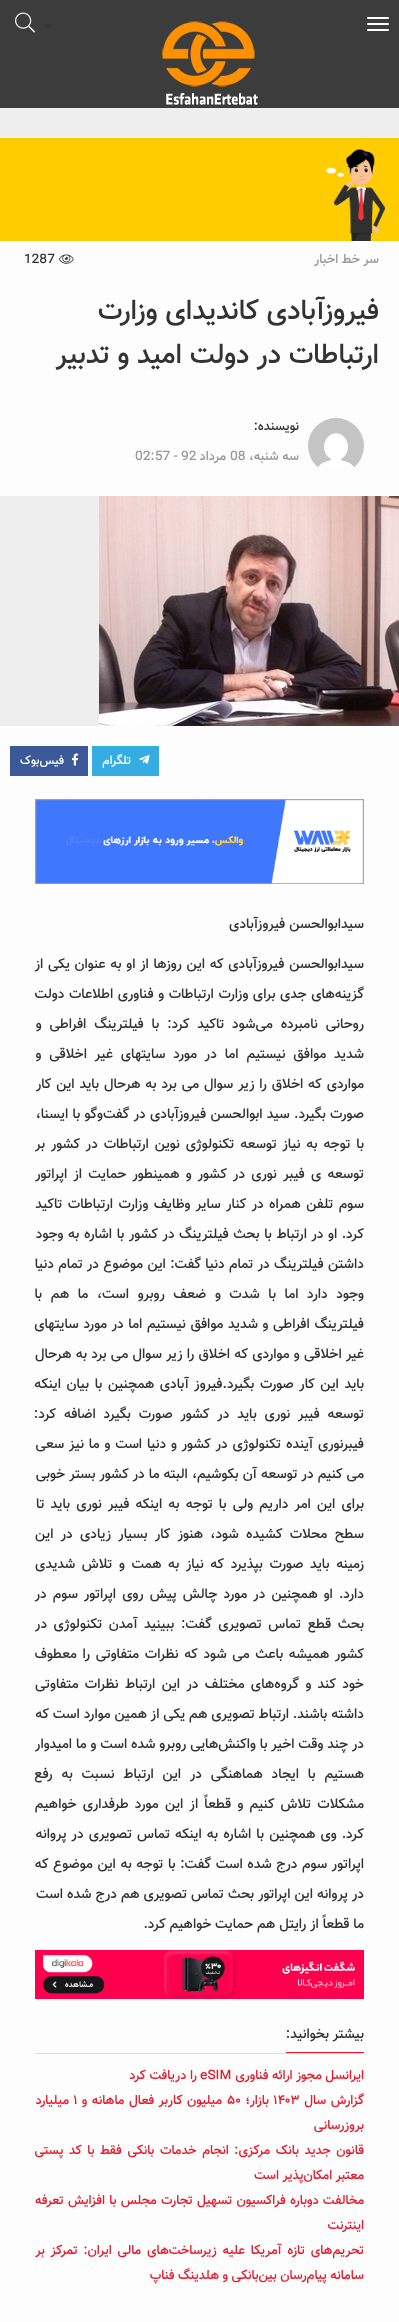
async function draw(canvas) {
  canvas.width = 399
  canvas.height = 2322
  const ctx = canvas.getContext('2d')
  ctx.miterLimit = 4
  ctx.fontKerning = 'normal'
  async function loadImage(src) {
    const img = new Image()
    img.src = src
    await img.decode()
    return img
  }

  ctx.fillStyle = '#eee'
  ctx.fillRect(0, 0, 399, 2322)
  ctx.fillStyle = '#3c3c3c'
  ctx.fillRect(0, 0, 399, 108)
  ctx.fillStyle = '#fdfdfd'
  ctx.beginPath()
  ctx.roundRect(367, 17, 22, 2, 1)
  ctx.fill()
  ctx.beginPath()
  ctx.roundRect(367, 23, 22, 2, 1)
  ctx.fill()
  ctx.beginPath()
  ctx.roundRect(367, 29, 22, 2, 1)
  ctx.fill()
  ctx.drawImage(await loadImage('image0.png'), 162, 21, 96, 84)
  ctx.fillStyle = '#333'
  ctx.beginPath()
  ctx.arc(48, 26, 2, 0, 2 * Math.PI)
  ctx.fill()
  ctx.drawImage(await loadImage('image1.png'), 15, 12, 20, 21)
  ctx.drawImage(await loadImage('image2.png'), 0, 138, 399, 103)
  ctx.fillStyle = '#fdfdfd'
  ctx.fillRect(0, 241, 399, 255)
  ctx.direction = 'rtl'
  ctx.font = '500 13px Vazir'
  ctx.fillStyle = '#999'
  ctx.fillText('سر خط اخبار', 379, 263)
  ctx.drawImage(await loadImage('image3.png'), 59, 254, 15, 10)
  ctx.direction = 'ltr'
  ctx.fillStyle = '#333'
  ctx.fillText('1287', 24, 263)
  ctx.direction = 'rtl'
  ctx.font = '500 28px Vazir'
  ctx.fillText('فیروزآبادی کاندیدای وزارت', 379, 319)
  ctx.fillText('ارتباطات در دولت امید و تدبیر', 379, 363)
  ctx.drawImage(await loadImage('image4.png'), 308, 418, 56, 49)
  ctx.font = '500 13px Vazir'
  ctx.fillText('نویسنده:', 299, 430)
  ctx.fillStyle = '#999'
  ctx.fillText('سه شنبه،', 299, 460)
  ctx.direction = 'ltr'
  ctx.fillText('08', 230, 460)
  ctx.direction = 'rtl'
  ctx.fillText('مرداد', 226, 460)
  ctx.direction = 'ltr'
  ctx.fillText('02:57 - 92', 135, 460)
  ctx.drawImage(await loadImage('image5.png'), 99, 496, 300, 230)
  ctx.fillStyle = '#fdfdfd'
  ctx.fillRect(0, 726, 399, 1596)
  ctx.fillStyle = '#36ade1'
  ctx.fillRect(92, 746, 67, 30)
  ctx.drawImage(await loadImage('image6.png'), 139, 755, 11, 9)
  ctx.direction = 'rtl'
  ctx.font = '500 12px Vazir'
  ctx.fillStyle = '#fff'
  ctx.fillText('تلگرام', 131, 764)
  ctx.fillStyle = '#3b5998'
  ctx.fillRect(10, 746, 78, 30)
  ctx.drawImage(await loadImage('image7.png'), 72, 753, 7, 13)
  ctx.fillStyle = '#fff'
  ctx.fillText('فیس‌بوک', 64, 764)
  ctx.drawImage(await loadImage('image8.png'), 35, 799, 329, 85)
  ctx.font = '500 14px Vazir'
  ctx.fillStyle = '#333'
  ctx.fillText('سیدابوالحسن فیروزآبادی', 364, 928)
  ctx.wordSpacing = '0.9px'
  ctx.fillText('سیدابوالحسن فیروزآبادی که این روزها از او به عنوان یکی از', 364, 968)
  ctx.wordSpacing = '0.75px'
  ctx.fillText('گزینه‌های جدی برای وزارت ارتباطات و فناوری اطلاعات دولت', 364, 998)
  ctx.wordSpacing = '4px'
  ctx.fillText('روحانی نامبرده می‌شود تاکید کرد: با فیلترینگ افراطی و', 364, 1028)
  ctx.fillText('شدید موافق نیستیم اما در مورد سایتهای غیر اخلاقی و', 364, 1058)
  ctx.wordSpacing = '1px'
  ctx.fillText('مواردی که اخلاق را زیر سوال می برد به هرحال باید این کار', 364, 1088)
  ctx.wordSpacing = '0.5px'
  ctx.fillText('صورت بگیرد. سید ابوالحسن فیروزآبادی در گفت‌وگو با ایسنا،', 364, 1118)
  ctx.wordSpacing = '2px'
  ctx.fillText('با توجه به نیاز توسعه تکنولوژی نوین ارتباطات در کشور بر', 364, 1148)
  ctx.wordSpacing = '2.4px'
  ctx.fillText('توسعه ی فیبر نوری در کشور و همینطور حمایت از اپراتور', 364, 1178)
  ctx.wordSpacing = '1.6px'
  ctx.fillText('سوم تلفن همراه در کنار سایر وظایف وزارت ارتباطات تاکید', 364, 1208)
  ctx.wordSpacing = '0.75px'
  ctx.fillText('کرد. او در ارتباط با بحث فیلترینگ در کشور با اشاره به وجود', 364, 1238)
  ctx.wordSpacing = '0.5px'
  ctx.fillText('داشتن فیلترینگ در تمام دنیا گفت: این موضوع در تمام دنیا', 364, 1268)
  ctx.wordSpacing = '4.75px'
  ctx.fillText('وجود دارد اما با شدت و ضعف روبرو است، ما هم با', 364, 1298)
  ctx.wordSpacing = '0.75px'
  ctx.fillText('فیلترینگ افراطی و شدید موافق نیستیم اما در مورد سایتهای', 364, 1328)
  ctx.wordSpacing = '0.4px'
  ctx.fillText('غیر اخلاقی و مواردی که اخلاق را زیر سوال می برد به هرحال', 364, 1358)
  ctx.wordSpacing = '1.75px'
  ctx.fillText('باید این کار صورت بگیرد.فیروز آبادی همچنین با بیان اینکه', 364, 1388)
  ctx.wordSpacing = '4px'
  ctx.fillText('توسعه فیبر نوری باید در کشور صورت بگیرد اضافه کرد:', 364, 1418)
  ctx.wordSpacing = '1px'
  ctx.fillText('فیبرنوری آینده تکنولوژی در کشور و دنیا است و ما نیز سعی', 364, 1448)
  ctx.wordSpacing = '0.25px'
  ctx.fillText('می کنیم در توسعه آن بکوشیم، البته ما در کشور بستر خوبی', 364, 1478)
  ctx.wordSpacing = '2.25px'
  ctx.fillText('برای این امر داریم ولی با توجه به اینکه فیبر نوری باید تا', 364, 1508)
  ctx.wordSpacing = '3.5px'
  ctx.fillText('سطح محلات کشیده شود، هنوز کار بسیار زیادی در این', 364, 1538)
  ctx.wordSpacing = '2.75px'
  ctx.fillText('زمینه باید صورت بپذیرد که نیاز به همت و تلاش شدیدی', 364, 1568)
  ctx.wordSpacing = '2.25px'
  ctx.fillText('دارد. او همچنین در مورد چالش پیش روی اپراتور سوم در', 364, 1598)
  ctx.wordSpacing = '2.75px'
  ctx.fillText('بحث قطع تماس تصویری گفت: ببینید آمدن تکنولوژی در', 364, 1628)
  ctx.wordSpacing = '1.75px'
  ctx.fillText('کشور همیشه باعث می شود که نظرات متفاوتی را معطوف', 364, 1658)
  ctx.wordSpacing = '2.5px'
  ctx.fillText('خود کند و گروه‌های مختلف در این ارتباط نظرات متفاوتی', 364, 1688)
  ctx.wordSpacing = '0px'
  ctx.fillText('داشته باشند. ارتباط تصویری هم یکی از همین موارد است که', 364, 1718)
  ctx.fillText('در چند وقت اخیر با واکنش‌هایی روبرو شده است و ما امیدوار', 364, 1748)
  ctx.wordSpacing = '5px'
  ctx.fillText('هستیم با ایجاد هماهنگی در این ارتباط نسبت به رفع', 364, 1778)
  ctx.wordSpacing = '2.4px'
  ctx.fillText('مشکلات تلاش کنیم و قطعاً از این مورد طرفداری خواهیم', 364, 1808)
  ctx.wordSpacing = '1.25px'
  ctx.fillText('کرد. وی همچنین با اشاره به اینکه تماس تصویری در پروانه', 364, 1838)
  ctx.wordSpacing = '0.75px'
  ctx.fillText('اپراتور سوم درج شده است گفت: با توجه به این موضوع که', 364, 1868)
  ctx.wordSpacing = '0.25px'
  ctx.fillText('در پروانه این اپراتور بحث تماس تصویری هم درج شده است', 364, 1898)
  ctx.wordSpacing = '0px'
  ctx.fillText('ما قطعاً از رایتل هم حمایت خواهیم کرد.', 364, 1928)
  ctx.drawImage(await loadImage('image9.png'), 35, 1950, 329, 49)
  ctx.fillStyle = '#ddd'
  ctx.fillRect(35, 2053, 329, 1)
  ctx.fillStyle = '#e51a2d'
  ctx.fillRect(286, 2052, 78, 1)
  ctx.fillStyle = '#333'
  ctx.fillText('بیشتر بخوانید:', 364, 2038)
  ctx.font = '500 13px Vazir'
  ctx.fillStyle = '#e51a2d'
  ctx.fillText('ایرانسل مجوز ارائه فناوری', 364, 2079)
  ctx.direction = 'ltr'
  ctx.fillText('eSIM', 200, 2079)
  ctx.direction = 'rtl'
  ctx.fillText('را دریافت کرد', 197, 2079)
  ctx.wordSpacing = '1px'
  ctx.fillText('گزارش سال', 364, 2104)
  ctx.wordSpacing = '0px'
  ctx.direction = 'ltr'
  ctx.fillText('۱۴۰۳', 273, 2104)
  ctx.direction = 'rtl'
  ctx.fillText('بازار؛', 269, 2104)
  ctx.direction = 'ltr'
  ctx.fillText('۵۰', 227, 2104)
  ctx.wordSpacing = '1px'
  ctx.direction = 'rtl'
  ctx.fillText('میلیون کاربر فعال ماهانه و', 222, 2104)
  ctx.wordSpacing = '0px'
  ctx.direction = 'ltr'
  ctx.fillText('۱', 73, 2104)
  ctx.direction = 'rtl'
  ctx.fillText('میلیارد', 69, 2104)
  ctx.fillText('بروزرسانی', 364, 2129)
  ctx.wordSpacing = '2px'
  ctx.fillText('قانون جدید بانک مرکزی: انجام خدمات بانکی فقط با کد پستی', 364, 2154)
  ctx.wordSpacing = '0px'
  ctx.fillText('معتبر امکان‌پذیر است', 364, 2179)
  ctx.wordSpacing = '0.75px'
  ctx.fillText('مخالفت دوباره فراکسیون تسهیل تجارت مجلس با افزایش تعرفه', 364, 2204)
  ctx.wordSpacing = '0px'
  ctx.fillText('اینترنت', 364, 2229)
  ctx.wordSpacing = '2.25px'
  ctx.fillText('تحریم‌های تازه آمریکا علیه زیرساخت‌های مالی ایران: تمرکز بر', 364, 2254)
  ctx.wordSpacing = '0px'
  ctx.fillText('سامانه پیام‌رسان بین‌بانکی و هلدینگ فناپ', 364, 2279)
}

draw(document.querySelector('canvas'))
